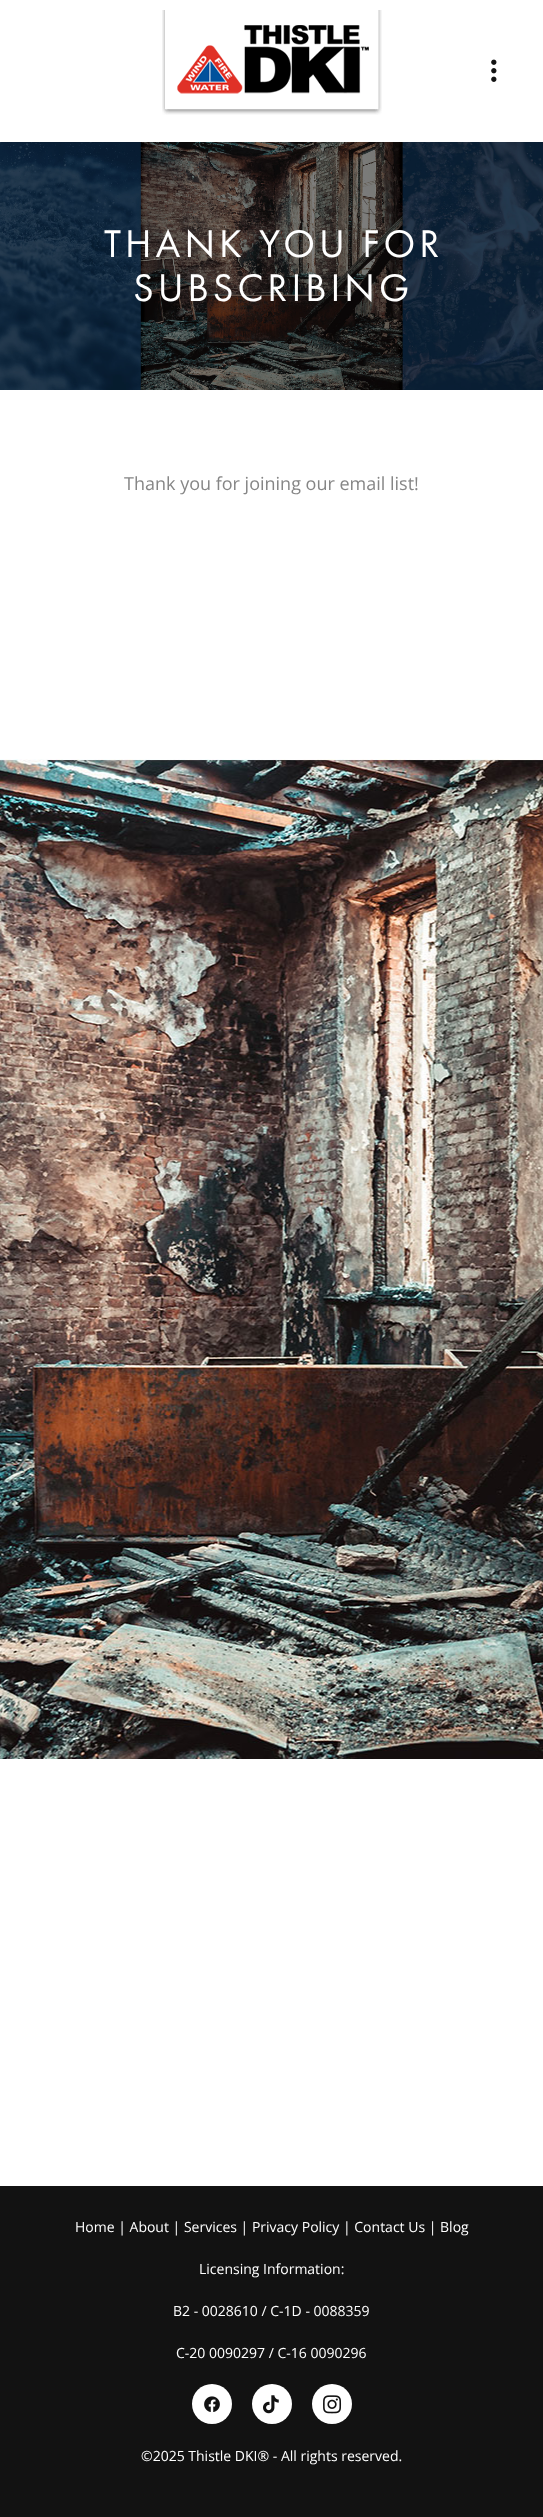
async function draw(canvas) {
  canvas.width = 543
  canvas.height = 2517
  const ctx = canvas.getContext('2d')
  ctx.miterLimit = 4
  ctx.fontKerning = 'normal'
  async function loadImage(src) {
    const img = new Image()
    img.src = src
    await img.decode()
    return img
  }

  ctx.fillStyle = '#fff'
  ctx.fillRect(0, 0, 543, 2517)
  ctx.drawImage(await loadImage('image0.png'), 0, 759, 543, 1000)
  ctx.drawImage(await loadImage('image1.png'), 162, 10, 220, 105)
  ctx.drawImage(await loadImage('image2.png'), 491, 59, 6, 23)
  ctx.drawImage(await loadImage('image3.png'), 0, 142, 543, 248)
  ctx.letterSpacing = '4px'
  ctx.font = '40px Futura PT'
  ctx.fillText('THANK YOU FOR', 104, 257)
  ctx.fillText('SUBSCRIBING', 133, 301)
  ctx.letterSpacing = '0px'
  ctx.font = '18px Open Sans'
  ctx.fillStyle = '#868686'
  ctx.fillText('Thank you for joining our email list!', 124, 490)
  ctx.fillStyle = '#121212'
  ctx.fillRect(0, 2186, 543, 331)
  ctx.font = '14px Open Sans'
  ctx.fillStyle = '#fff'
  ctx.fillText('Home | About | Services | Privacy Policy | Contact Us | Blog', 75, 2232)
  ctx.fillText('Licensing Information:', 199, 2274)
  ctx.fillText('B2 - 0028610 / C-1D - 0088359', 173, 2316)
  ctx.fillText('C-20 0090297 / C-16 0090296', 176, 2358)
  ctx.beginPath()
  ctx.arc(212, 2404, 20, 0, 2 * Math.PI)
  ctx.fill()
  ctx.drawImage(await loadImage('image4.png'), 204, 2396, 16, 16)
  ctx.beginPath()
  ctx.arc(272, 2404, 20, 0, 2 * Math.PI)
  ctx.fill()
  ctx.drawImage(await loadImage('image5.png'), 263, 2395, 16, 19)
  ctx.beginPath()
  ctx.arc(332, 2404, 20, 0, 2 * Math.PI)
  ctx.fill()
  ctx.drawImage(await loadImage('image6.png'), 323, 2395, 19, 19)
  ctx.fillText('©2025 Thistle DKI® - All rights reserved.', 141, 2461)
}

draw(document.querySelector('canvas'))
